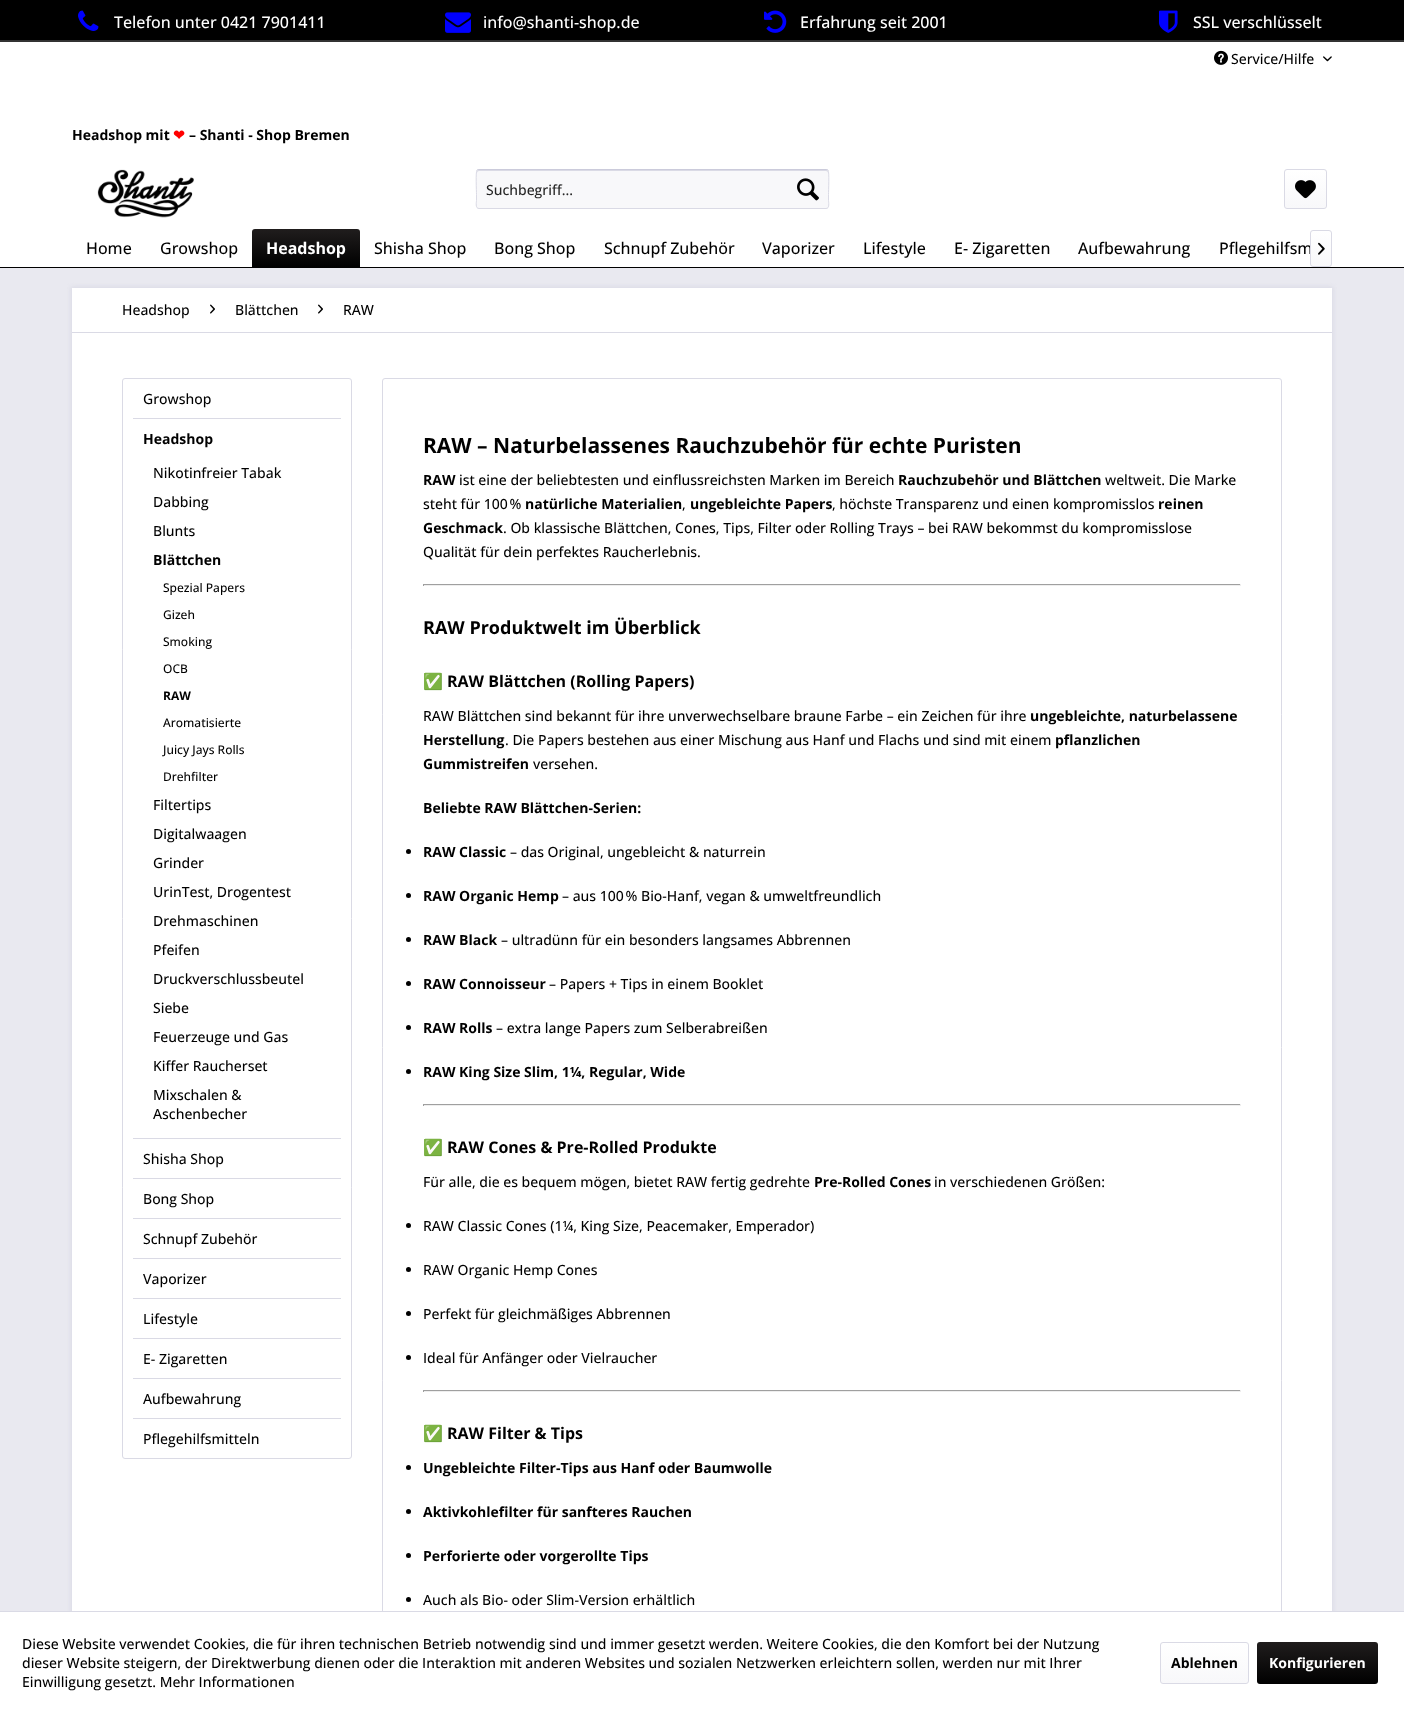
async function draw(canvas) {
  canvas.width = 1404
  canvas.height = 1713
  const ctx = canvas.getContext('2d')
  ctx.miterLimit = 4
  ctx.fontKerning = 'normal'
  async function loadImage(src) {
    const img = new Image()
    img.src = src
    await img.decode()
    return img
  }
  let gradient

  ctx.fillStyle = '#e9e9f0'
  ctx.fillRect(0, 0, 1404, 1713)
  ctx.fillStyle = '#fff'
  ctx.fillRect(0, 42, 1404, 225)
  ctx.fillStyle = '#000'
  ctx.fillRect(0, 0, 1404, 40)
  ctx.fillStyle = '#333'
  ctx.fillRect(0, 40, 1404, 2)
  ctx.drawImage(await loadImage('image0.png'), 78, 10, 21, 21)
  ctx.font = '500 16px Open Sans'
  ctx.fillStyle = '#fff'
  ctx.fillText('Telefon unter 0421 7901411', 114, 28)
  ctx.drawImage(await loadImage('image1.png'), 445, 12, 26, 21)
  ctx.fillText('info@shanti-shop.de', 483, 28)
  ctx.drawImage(await loadImage('image2.png'), 764, 10, 23, 23)
  ctx.fillText('Erfahrung seit 2001', 800, 28)
  ctx.drawImage(await loadImage('image3.png'), 1159, 10, 19, 23)
  ctx.fillText('SSL verschlüsselt', 1193, 28)
  ctx.drawImage(await loadImage('image4.png'), 1214, 50, 14, 15)
  ctx.font = '500 14px Open Sans'
  ctx.fillStyle = '#000'
  ctx.fillText('Service/Hilfe', 1231, 64)
  ctx.drawImage(await loadImage('image5.png'), 1323, 56, 9, 6)
  ctx.font = 'bold 14px Open Sans'
  ctx.fillText('Headshop mit', 72, 140)
  ctx.font = 'bold 14px DejaVu Sans'
  ctx.fillStyle = '#f00'
  ctx.fillText('❤', 173, 140)
  ctx.font = 'bold 14px Open Sans'
  ctx.fillStyle = '#000'
  ctx.fillText('– Shanti - Shop Bremen', 189, 140)
  ctx.drawImage(await loadImage('image6.png'), 97, 169, 97, 49)
  ctx.fillStyle = '#f8f8fa'
  ctx.beginPath()
  ctx.roundRect(476, 169, 353, 40, 3)
  ctx.fill()
  ctx.fillStyle = '#dadae5'
  ctx.beginPath()
  ctx.moveTo(479, 171)
  ctx.lineTo(826, 171)
  ctx.bezierCurveTo(827, 171, 828, 172, 828, 173)
  ctx.bezierCurveTo(828, 172, 828, 170, 826, 170)
  ctx.lineTo(479, 170)
  ctx.bezierCurveTo(477, 170, 477, 172, 477, 173)
  ctx.bezierCurveTo(477, 172, 478, 171, 479, 171)
  ctx.closePath()
  ctx.fill()
  ctx.beginPath()
  ctx.moveTo(477, 170)
  ctx.lineTo(479, 169.5)
  ctx.lineTo(826, 169.5)
  ctx.lineTo(828, 170)
  ctx.strokeStyle = '#cbcbdb'
  ctx.stroke()
  ctx.beginPath()
  ctx.moveTo(828, 170)
  ctx.bezierCurveTo(829.5, 172, 828.5, 191, 828.5, 194.5)
  ctx.lineTo(828.5, 200.5)
  ctx.bezierCurveTo(828.5, 202, 830, 208.5, 826, 208.5)
  ctx.lineTo(479, 208.5)
  ctx.bezierCurveTo(475, 208.5, 476.5, 202, 476.5, 200.5)
  ctx.lineTo(476.5, 194.5)
  ctx.bezierCurveTo(476.5, 191, 475.5, 172, 477, 170)
  ctx.strokeStyle = '#dadae5'
  ctx.stroke()
  ctx.font = '500 14px Open Sans'
  ctx.fillStyle = '#262626'
  ctx.fillText('Suchbegriff...', 486, 195)
  ctx.drawImage(await loadImage('image7.png'), 797, 178, 22, 23)
  gradient = ctx.createLinearGradient(1306, 170, 1306, 208)
  gradient.addColorStop(0, '#fff')
  gradient.addColorStop(1, '#f8f8fa')
  ctx.fillStyle = gradient
  ctx.beginPath()
  ctx.roundRect(1285, 170, 41, 38, 2)
  ctx.fill()
  ctx.beginPath()
  ctx.roundRect(1284.5, 169.5, 42, 39, 2.5)
  ctx.stroke()
  ctx.drawImage(await loadImage('image8.png'), 1295, 180, 21, 19)
  ctx.fillStyle = '#000'
  ctx.fillRect(0, 267, 1404, 1)
  ctx.font = '500 16px Open Sans'
  ctx.fillText('Home', 86, 254)
  ctx.fillText('Growshop', 160, 254)
  gradient = ctx.createLinearGradient(306, 229, 306, 267)
  gradient.addColorStop(0, '#201d1d')
  gradient.addColorStop(1, '#000')
  ctx.fillStyle = gradient
  ctx.beginPath()
  ctx.roundRect(252, 229, 108, 38, [3, 3, 0, 0])
  ctx.fill()
  ctx.font = 'bold 16px Open Sans'
  ctx.fillStyle = '#fff'
  ctx.fillText('Headshop', 266, 254)
  ctx.font = '500 16px Open Sans'
  ctx.fillStyle = '#000'
  ctx.fillText('Shisha Shop', 374, 254)
  ctx.fillText('Bong Shop', 494, 254)
  ctx.fillText('Schnupf Zubehör', 604, 254)
  ctx.fillText('Vaporizer', 762, 254)
  ctx.fillText('Lifestyle', 863, 254)
  ctx.fillText('E- Zigaretten', 954, 254)
  ctx.fillText('Aufbewahrung', 1078, 254)
  ctx.fillText('Pflegehilfsm', 1219, 254)
  gradient = ctx.createLinearGradient(1321, 231, 1321, 266)
  gradient.addColorStop(0, '#fff')
  gradient.addColorStop(1, '#f8f8fa')
  ctx.fillStyle = gradient
  ctx.beginPath()
  ctx.roundRect(1311, 231, 20, 35, 2)
  ctx.fill()
  ctx.beginPath()
  ctx.roundRect(1310.5, 230.5, 21, 36, 2.5)
  ctx.stroke()
  ctx.drawImage(await loadImage('image9.png'), 1318, 242, 7, 13)
  ctx.fillStyle = '#dadae5'
  ctx.filter = 'blur(2px)'
  ctx.beginPath()
  ctx.rect(71, 287, 1262, 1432)
  ctx.fill()
  ctx.filter = 'none'
  ctx.fillStyle = '#fff'
  ctx.fillRect(72, 288, 1260, 1323)
  ctx.fillStyle = '#dadae5'
  ctx.fillRect(72, 332, 1260, 1)
  ctx.font = '500 14px Open Sans'
  ctx.fillStyle = '#000'
  ctx.fillText('Headshop', 122, 315)
  ctx.drawImage(await loadImage('image10.png'), 210, 304, 5, 10)
  ctx.fillText('Blättchen', 235, 315)
  ctx.drawImage(await loadImage('image10.png'), 318, 304, 5, 10)
  ctx.fillText('RAW', 343, 315)
  ctx.beginPath()
  ctx.roundRect(122.5, 378.5, 229, 1080, 2.5)
  ctx.stroke()
  ctx.fillStyle = '#dadae5'
  ctx.fillRect(133, 418, 208, 1)
  ctx.fillStyle = '#000'
  ctx.fillText('Growshop', 143, 404)
  ctx.fillStyle = '#dadae5'
  ctx.fillRect(133, 1138, 208, 1)
  ctx.font = 'bold 14px Open Sans'
  ctx.fillStyle = '#000'
  ctx.fillText('Headshop', 143, 444)
  ctx.font = '500 14px Open Sans'
  ctx.fillText('Nikotinfreier Tabak', 153, 478)
  ctx.fillText('Dabbing', 153, 507)
  ctx.fillText('Blunts', 153, 536)
  ctx.font = 'bold 14px Open Sans'
  ctx.fillText('Blättchen', 153, 565)
  ctx.font = '500 12px Open Sans'
  ctx.fillText('Spezial Papers', 163, 592)
  ctx.fillText('Gizeh', 163, 619)
  ctx.fillText('Smoking', 163, 646)
  ctx.fillText('OCB', 163, 673)
  ctx.font = 'bold 12px Open Sans'
  ctx.fillText('RAW', 163, 700)
  ctx.font = '500 12px Open Sans'
  ctx.fillText('Aromatisierte', 163, 727)
  ctx.fillText('Juicy Jays Rolls', 163, 754)
  ctx.fillText('Drehfilter', 163, 781)
  ctx.font = '500 14px Open Sans'
  ctx.fillText('Filtertips', 153, 810)
  ctx.fillText('Digitalwaagen', 153, 839)
  ctx.fillText('Grinder', 153, 868)
  ctx.fillText('UrinTest, Drogentest', 153, 897)
  ctx.fillText('Drehmaschinen', 153, 926)
  ctx.fillText('Pfeifen', 153, 955)
  ctx.fillText('Druckverschlussbeutel', 153, 984)
  ctx.fillText('Siebe', 153, 1013)
  ctx.fillText('Feuerzeuge und Gas', 153, 1042)
  ctx.fillText('Kiffer Raucherset', 153, 1071)
  ctx.fillText('Mixschalen &', 153, 1100)
  ctx.fillText('Aschenbecher', 153, 1119)
  ctx.fillStyle = '#dadae5'
  ctx.fillRect(133, 1178, 208, 1)
  ctx.fillStyle = '#000'
  ctx.fillText('Shisha Shop', 143, 1164)
  ctx.fillStyle = '#dadae5'
  ctx.fillRect(133, 1218, 208, 1)
  ctx.fillStyle = '#000'
  ctx.fillText('Bong Shop', 143, 1204)
  ctx.fillStyle = '#dadae5'
  ctx.fillRect(133, 1258, 208, 1)
  ctx.fillStyle = '#000'
  ctx.fillText('Schnupf Zubehör', 143, 1244)
  ctx.fillStyle = '#dadae5'
  ctx.fillRect(133, 1298, 208, 1)
  ctx.fillStyle = '#000'
  ctx.fillText('Vaporizer', 143, 1284)
  ctx.fillStyle = '#dadae5'
  ctx.fillRect(133, 1338, 208, 1)
  ctx.fillStyle = '#000'
  ctx.fillText('Lifestyle', 143, 1324)
  ctx.fillStyle = '#dadae5'
  ctx.fillRect(133, 1378, 208, 1)
  ctx.fillStyle = '#000'
  ctx.fillText('E- Zigaretten', 143, 1364)
  ctx.fillStyle = '#dadae5'
  ctx.fillRect(133, 1418, 208, 1)
  ctx.fillStyle = '#000'
  ctx.fillText('Aufbewahrung', 143, 1404)
  ctx.fillText('Pflegehilfsmitteln', 143, 1444)
  ctx.beginPath()
  ctx.roundRect(382.5, 378.5, 899, 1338, 2.5)
  ctx.stroke()
  ctx.font = 'bold 21px Open Sans'
  ctx.fillText('RAW – Naturbelassenes Rauchzubehör für echte Puristen', 423, 453)
  ctx.font = 'bold 14px Open Sans'
  ctx.fillText('RAW', 423, 485)
  ctx.font = '500 14px Open Sans'
  ctx.fillText('ist eine der beliebtesten und einflussreichsten Marken im Bereich', 459, 485)
  ctx.font = 'bold 14px Open Sans'
  ctx.fillText('Rauchzubehör und Blättchen', 898, 485)
  ctx.font = '500 14px Open Sans'
  ctx.fillText('weltweit. Die Marke', 1105, 485)
  ctx.fillText('steht für 100 %', 423, 509)
  ctx.font = 'bold 14px Open Sans'
  ctx.fillText('natürliche Materialien', 525, 509)
  ctx.font = '500 14px Open Sans'
  ctx.fillText(',', 682, 509)
  ctx.font = 'bold 14px Open Sans'
  ctx.fillText('ungebleichte Papers', 690, 509)
  ctx.font = '500 14px Open Sans'
  ctx.fillText(', höchste Transparenz und einen kompromisslos', 832, 509)
  ctx.font = 'bold 14px Open Sans'
  ctx.fillText('reinen', 1158, 509)
  ctx.fillText('Geschmack', 423, 533)
  ctx.font = '500 14px Open Sans'
  ctx.fillText('. Ob klassische Blättchen, Cones, Tips, Filter oder Rolling Trays – bei RAW bekommst du kompromisslose', 503, 533)
  ctx.fillText('Qualität für dein perfektes Raucherlebnis.', 423, 557)
  ctx.fillStyle = '#9f9f9f'
  ctx.fillRect(423, 584, 818, 1)
  ctx.fillStyle = '#eee'
  ctx.fillRect(1240, 584, 1, 2)
  ctx.fillRect(423, 585, 818, 1)
  ctx.fillStyle = '#9f9f9f'
  ctx.fillRect(423, 584, 1, 2)
  ctx.font = 'bold 18px Open Sans'
  ctx.fillStyle = '#000'
  ctx.fillText('RAW Produktwelt im Überblick', 423, 634)
  ctx.font = 'bold 16px Noto Color Emoji'
  ctx.fillText('✅', 423, 687)
  ctx.font = 'bold 16px Open Sans'
  ctx.fillText('RAW Blättchen (Rolling Papers)', 447, 687)
  ctx.font = '500 14px Open Sans'
  ctx.fillText('RAW Blättchen sind bekannt für ihre unverwechselbare braune Farbe – ein Zeichen für ihre', 423, 721)
  ctx.font = 'bold 14px Open Sans'
  ctx.fillText('ungebleichte, naturbelassene', 1030, 721)
  ctx.fillText('Herstellung', 423, 745)
  ctx.font = '500 14px Open Sans'
  ctx.fillText('. Die Papers bestehen aus einer Mischung aus Hanf und Flachs und sind mit einem', 505, 745)
  ctx.font = 'bold 14px Open Sans'
  ctx.fillText('pflanzlichen', 1055, 745)
  ctx.fillText('Gummistreifen', 423, 769)
  ctx.font = '500 14px Open Sans'
  ctx.fillText('versehen.', 533, 769)
  ctx.font = 'bold 14px Open Sans'
  ctx.fillText('Beliebte RAW Blättchen-Serien:', 423, 813)
  ctx.beginPath()
  ctx.arc(408.5, 851.5, 2.5, 0, 2 * Math.PI)
  ctx.fill()
  ctx.fillText('RAW Classic', 423, 857)
  ctx.font = '500 14px Open Sans'
  ctx.fillText('– das Original, ungebleicht & naturrein', 510, 857)
  ctx.beginPath()
  ctx.arc(408.5, 895.5, 2.5, 0, 2 * Math.PI)
  ctx.fill()
  ctx.font = 'bold 14px Open Sans'
  ctx.fillText('RAW Organic Hemp', 423, 901)
  ctx.font = '500 14px Open Sans'
  ctx.fillText('– aus 100 % Bio-Hanf, vegan & umweltfreundlich', 562, 901)
  ctx.beginPath()
  ctx.arc(408.5, 939.5, 2.5, 0, 2 * Math.PI)
  ctx.fill()
  ctx.font = 'bold 14px Open Sans'
  ctx.fillText('RAW Black', 423, 945)
  ctx.font = '500 14px Open Sans'
  ctx.fillText('– ultradünn für ein besonders langsames Abbrennen', 501, 945)
  ctx.beginPath()
  ctx.arc(408.5, 983.5, 2.5, 0, 2 * Math.PI)
  ctx.fill()
  ctx.font = 'bold 14px Open Sans'
  ctx.fillText('RAW Connoisseur', 423, 989)
  ctx.font = '500 14px Open Sans'
  ctx.fillText('– Papers + Tips in einem Booklet', 549, 989)
  ctx.beginPath()
  ctx.arc(408.5, 1027.5, 2.5, 0, 2 * Math.PI)
  ctx.fill()
  ctx.font = 'bold 14px Open Sans'
  ctx.fillText('RAW Rolls', 423, 1033)
  ctx.font = '500 14px Open Sans'
  ctx.fillText('– extra lange Papers zum Selberabreißen', 496, 1033)
  ctx.beginPath()
  ctx.arc(408.5, 1071.5, 2.5, 0, 2 * Math.PI)
  ctx.fill()
  ctx.font = 'bold 14px Open Sans'
  ctx.fillText('RAW King Size Slim, 1¼, Regular, Wide', 423, 1077)
  ctx.fillStyle = '#9f9f9f'
  ctx.fillRect(423, 1104, 818, 1)
  ctx.fillStyle = '#eee'
  ctx.fillRect(1240, 1104, 1, 2)
  ctx.fillRect(423, 1105, 818, 1)
  ctx.fillStyle = '#9f9f9f'
  ctx.fillRect(423, 1104, 1, 2)
  ctx.font = 'bold 16px Noto Color Emoji'
  ctx.fillStyle = '#000'
  ctx.fillText('✅', 423, 1153)
  ctx.font = 'bold 16px Open Sans'
  ctx.fillText('RAW Cones & Pre-Rolled Produkte', 447, 1153)
  ctx.font = '500 14px Open Sans'
  ctx.fillText('Für alle, die es bequem mögen, bietet RAW fertig gedrehte', 423, 1187)
  ctx.font = 'bold 14px Open Sans'
  ctx.fillText('Pre-Rolled Cones', 814, 1187)
  ctx.font = '500 14px Open Sans'
  ctx.fillText('in verschiedenen Größen:', 934, 1187)
  ctx.beginPath()
  ctx.arc(408.5, 1225.5, 2.5, 0, 2 * Math.PI)
  ctx.fill()
  ctx.fillText('RAW Classic Cones (1¼, King Size, Peacemaker, Emperador)', 423, 1231)
  ctx.beginPath()
  ctx.arc(408.5, 1269.5, 2.5, 0, 2 * Math.PI)
  ctx.fill()
  ctx.fillText('RAW Organic Hemp Cones', 423, 1275)
  ctx.beginPath()
  ctx.arc(408.5, 1313.5, 2.5, 0, 2 * Math.PI)
  ctx.fill()
  ctx.fillText('Perfekt für gleichmäßiges Abbrennen', 423, 1319)
  ctx.beginPath()
  ctx.arc(408.5, 1357.5, 2.5, 0, 2 * Math.PI)
  ctx.fill()
  ctx.fillText('Ideal für Anfänger oder Vielraucher', 423, 1363)
  ctx.fillStyle = '#9f9f9f'
  ctx.fillRect(423, 1390, 818, 1)
  ctx.fillStyle = '#eee'
  ctx.fillRect(1240, 1390, 1, 2)
  ctx.fillRect(423, 1391, 818, 1)
  ctx.fillStyle = '#9f9f9f'
  ctx.fillRect(423, 1390, 1, 2)
  ctx.font = 'bold 16px Noto Color Emoji'
  ctx.fillStyle = '#000'
  ctx.fillText('✅', 423, 1439)
  ctx.font = 'bold 16px Open Sans'
  ctx.fillText('RAW Filter & Tips', 447, 1439)
  ctx.beginPath()
  ctx.arc(408.5, 1467.5, 2.5, 0, 2 * Math.PI)
  ctx.fill()
  ctx.font = 'bold 14px Open Sans'
  ctx.fillText('Ungebleichte Filter-Tips aus Hanf oder Baumwolle', 423, 1473)
  ctx.beginPath()
  ctx.arc(408.5, 1511.5, 2.5, 0, 2 * Math.PI)
  ctx.fill()
  ctx.fillText('Aktivkohlefilter für sanfteres Rauchen', 423, 1517)
  ctx.beginPath()
  ctx.arc(408.5, 1555.5, 2.5, 0, 2 * Math.PI)
  ctx.fill()
  ctx.fillText('Perforierte oder vorgerollte Tips', 423, 1561)
  ctx.beginPath()
  ctx.arc(408.5, 1599.5, 2.5, 0, 2 * Math.PI)
  ctx.fill()
  ctx.font = '500 14px Open Sans'
  ctx.fillText('Auch als Bio- oder Slim-Version erhältlich', 423, 1605)
  ctx.fillStyle = '#fff'
  ctx.fillRect(0, 1612, 1404, 101)
  ctx.fillStyle = '#dadae5'
  ctx.fillRect(0, 1611, 1404, 1)
  ctx.fillStyle = '#000'
  ctx.fillText('Diese Website verwendet Cookies, die für ihren technischen Betrieb notwendig sind und immer gesetzt werden. Weitere Cookies, die den Komfort bei der Nutzung', 22, 1649)
  ctx.fillText('dieser Website steigern, der Direktwerbung dienen oder die Interaktion mit anderen Websites und sozialen Netzwerken erleichtern sollen, werden nur mit Ihrer', 22, 1668)
  ctx.fillText('Einwilligung gesetzt. Mehr Informationen', 22, 1687)
  gradient = ctx.createLinearGradient(1205, 1643, 1205, 1683)
  gradient.addColorStop(0, '#fff')
  gradient.addColorStop(1, '#f8f8fa')
  ctx.fillStyle = gradient
  ctx.beginPath()
  ctx.roundRect(1161, 1643, 87, 40, 2)
  ctx.fill()
  ctx.beginPath()
  ctx.roundRect(1160.5, 1642.5, 88, 41, 2.5)
  ctx.stroke()
  ctx.font = 'bold 14px Open Sans'
  ctx.fillStyle = '#000'
  ctx.fillText('Ablehnen', 1171, 1668)
  gradient = ctx.createLinearGradient(1318, 1642, 1318, 1684)
  gradient.addColorStop(0, '#201d1d')
  gradient.addColorStop(1, '#000')
  ctx.fillStyle = gradient
  ctx.beginPath()
  ctx.roundRect(1257, 1642, 121, 42, 3)
  ctx.fill()
  ctx.fillStyle = '#fff'
  ctx.fillText('Konfigurieren', 1269, 1668)
}

draw(document.querySelector('canvas'))
